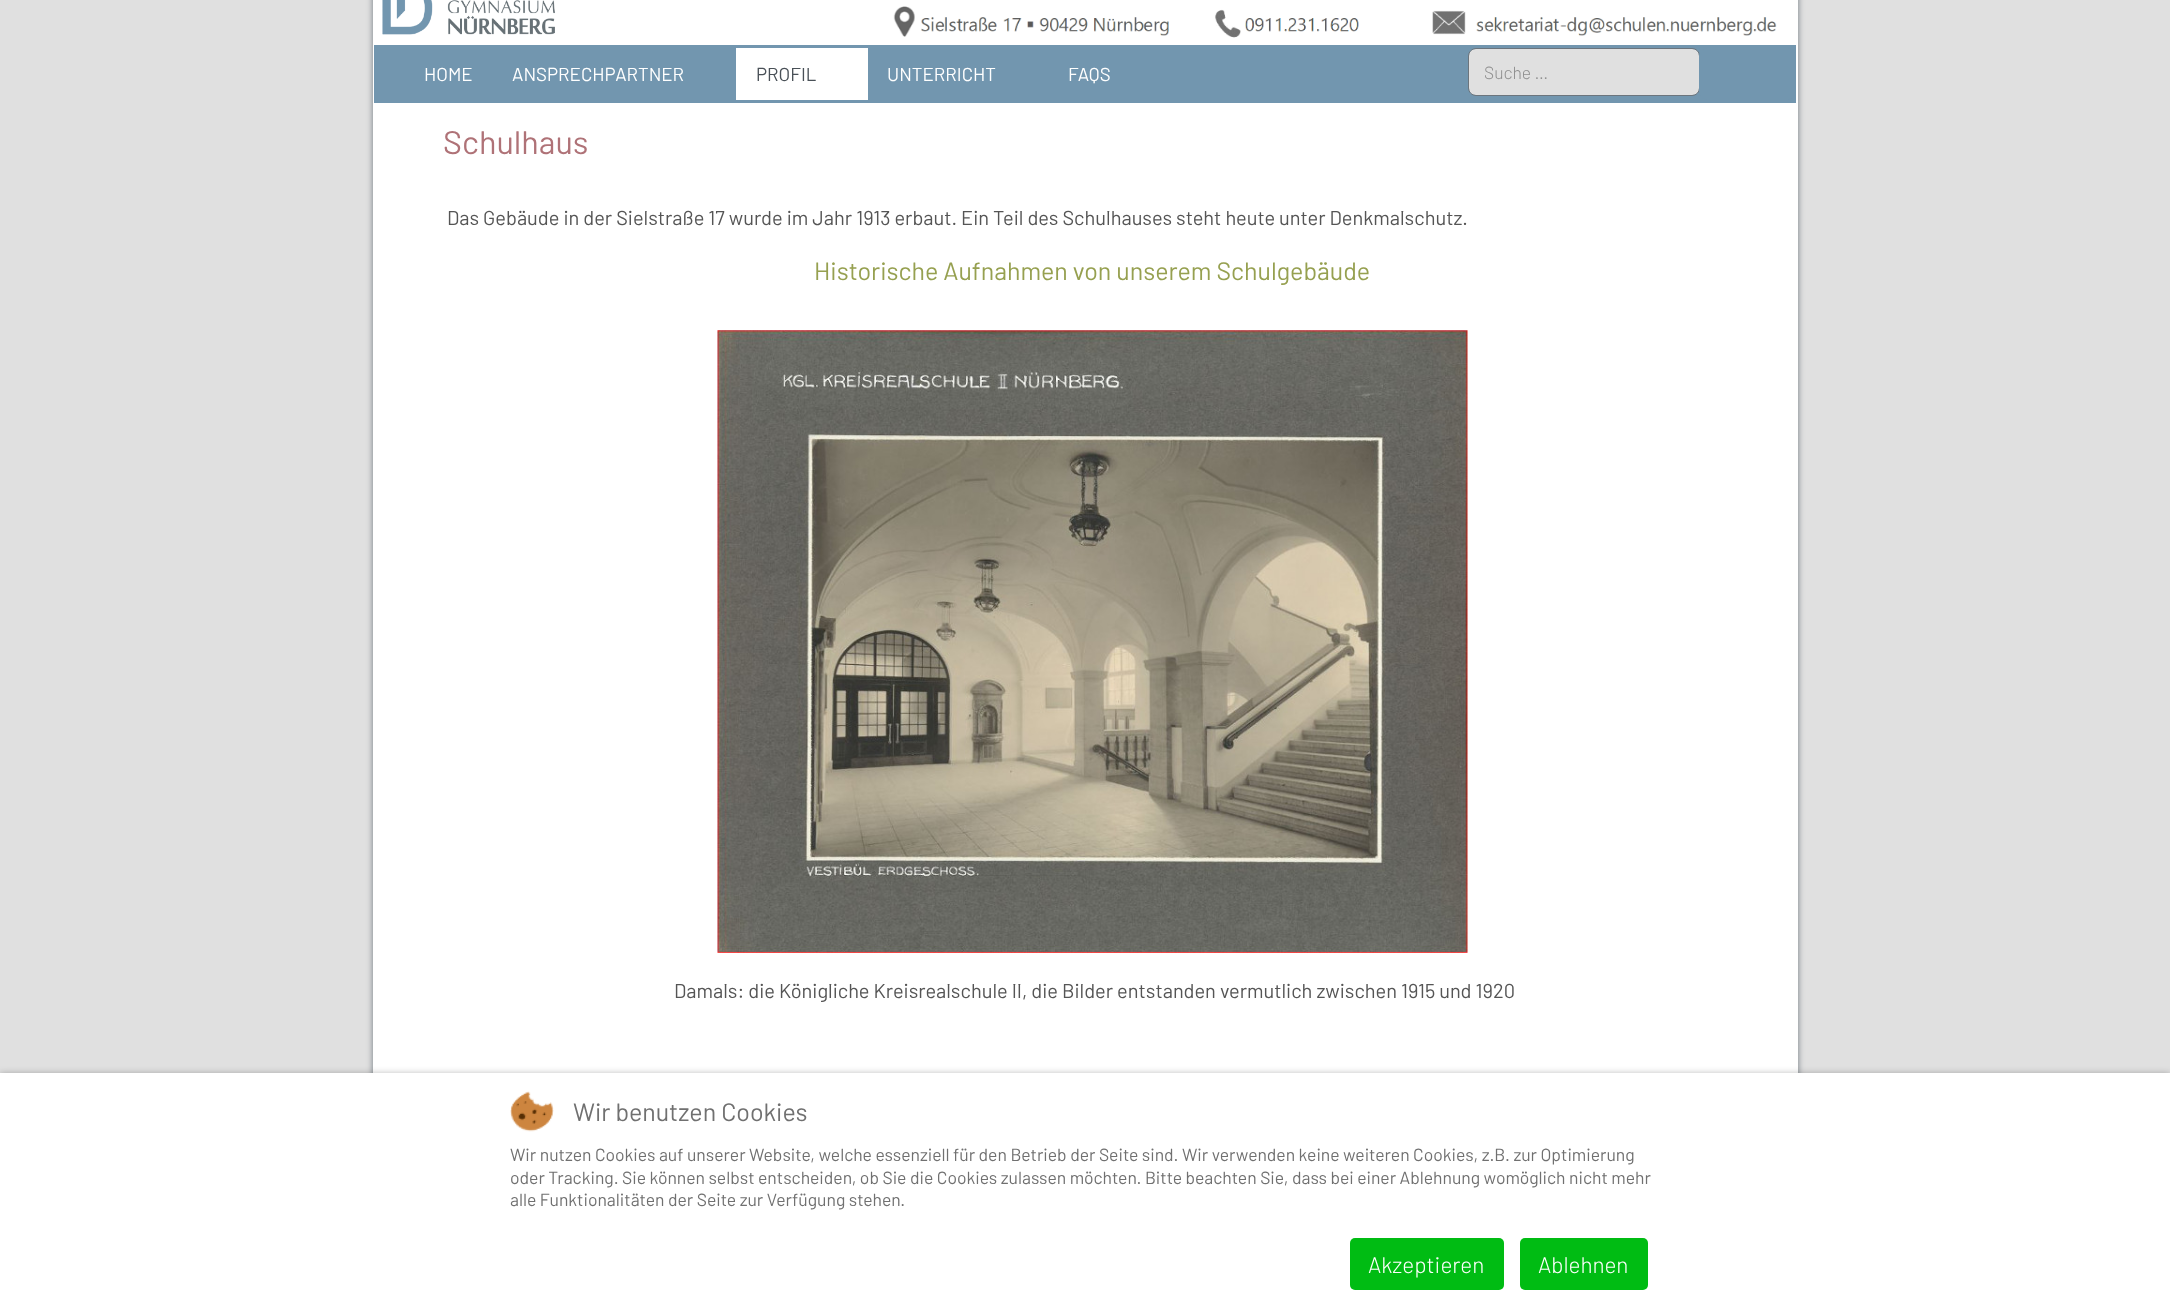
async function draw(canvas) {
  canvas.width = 2170
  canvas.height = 1308
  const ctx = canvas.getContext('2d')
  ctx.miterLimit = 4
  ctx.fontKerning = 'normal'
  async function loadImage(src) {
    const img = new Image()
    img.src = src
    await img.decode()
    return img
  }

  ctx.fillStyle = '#e0e0e0'
  ctx.fillRect(0, 0, 2170, 1308)
  ctx.fillStyle = '#6c757d'
  ctx.filter = 'blur(3px)'
  ctx.beginPath()
  ctx.rect(373, -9, 1425, 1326)
  ctx.fill()
  ctx.filter = 'none'
  ctx.fillStyle = '#fff'
  ctx.fillRect(373, 0, 1425, 1073)
  ctx.drawImage(await loadImage('image0.png'), 382, 0, 173, 35)
  ctx.drawImage(await loadImage('image1.png'), 893, 6, 884, 32)
  ctx.fillStyle = '#7296af'
  ctx.fillRect(374, 45, 1422, 58)
  ctx.font = '18.75px Barlow'
  ctx.fillStyle = '#fff'
  ctx.fillText('HOME', 424, 81)
  ctx.fillText('ANSPRECHPARTNER', 512, 81)
  ctx.fillRect(736, 48, 132, 52)
  ctx.fillStyle = '#495057'
  ctx.fillText('PROFIL', 756, 81)
  ctx.fillStyle = '#fff'
  ctx.fillText('UNTERRICHT', 887, 81)
  ctx.fillText('FAQS', 1068, 81)
  ctx.fillStyle = '#e0e0e0'
  ctx.beginPath()
  ctx.roundRect(1469, 49, 230, 46, 6)
  ctx.fill()
  ctx.beginPath()
  ctx.roundRect(1468.5, 48.5, 231, 47, 7.5)
  ctx.strokeStyle = '#6c757d'
  ctx.stroke()
  ctx.font = '300 17.5px Barlow'
  ctx.fillStyle = '#8e8e8e'
  ctx.fillText('Suche …', 1484, 79)
  ctx.fillStyle = '#7296af'
  ctx.beginPath()
  ctx.roundRect(1699.5, 48.5, 96, 51, 7.5)
  ctx.fill()
  ctx.strokeStyle = '#7296af'
  ctx.stroke()
  ctx.font = '32.5px Barlow'
  ctx.fillStyle = '#af7277'
  ctx.fillText('Schulhaus', 443, 154)
  ctx.font = '20px Barlow'
  ctx.fillStyle = '#555'
  ctx.fillText('Das Gebäude in der Sielstraße 17 wurde im Jahr 1913 erbaut. Ein Teil des Schulhauses steht heute unter Denkmalschutz.', 447, 225)
  ctx.font = '25px Barlow'
  ctx.fillStyle = '#96a050'
  ctx.fillText('Historische Aufnahmen von unserem Schulgebäude', 814, 280)
  ctx.drawImage(await loadImage('image2.png'), 717, 330, 751, 623)
  ctx.font = '20px Barlow'
  ctx.fillStyle = '#555'
  ctx.fillText('Damals: die Königliche Kreisrealschule II, die Bilder entstanden vermutlich zwischen 1915 und 1920', 674, 998)
  ctx.fillStyle = '#00000040'
  ctx.filter = 'blur(3px)'
  ctx.beginPath()
  ctx.rect(0, 1073, 2170, 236)
  ctx.fill()
  ctx.filter = 'none'
  ctx.fillStyle = '#fff'
  ctx.fillRect(0, 1073, 2170, 235)
  ctx.drawImage(await loadImage('image3.png'), 510, 1091, 44, 41)
  ctx.font = '25px Barlow'
  ctx.fillStyle = '#707070'
  ctx.fillText('Wir benutzen Cookies', 573, 1121)
  ctx.font = '17.5px Barlow'
  ctx.fillText('Wir nutzen Cookies auf unserer Website, welche essenziell für den Betrieb der Seite sind. Wir verwenden keine weiteren Cookies, z.B. zur Optimierung', 510, 1161)
  ctx.fillText('oder Tracking. Sie können selbst entscheiden, ob Sie die Cookies zulassen möchten. Bitte beachten Sie, dass bei einer Ablehnung womöglich nicht mehr', 510, 1184)
  ctx.fillText('alle Funktionalitäten der Seite zur Verfügung stehen.', 510, 1206)
  ctx.fillStyle = '#00bc13'
  ctx.beginPath()
  ctx.roundRect(1350, 1238, 154, 52, 5)
  ctx.fill()
  ctx.font = '300 22.5px Barlow'
  ctx.fillStyle = '#fff'
  ctx.fillText('Akzeptieren', 1368, 1273)
  ctx.fillStyle = '#00bc13'
  ctx.beginPath()
  ctx.roundRect(1520, 1238, 128, 52, 5)
  ctx.fill()
  ctx.fillStyle = '#fff'
  ctx.fillText('Ablehnen', 1538, 1273)
}

draw(document.querySelector('canvas'))
